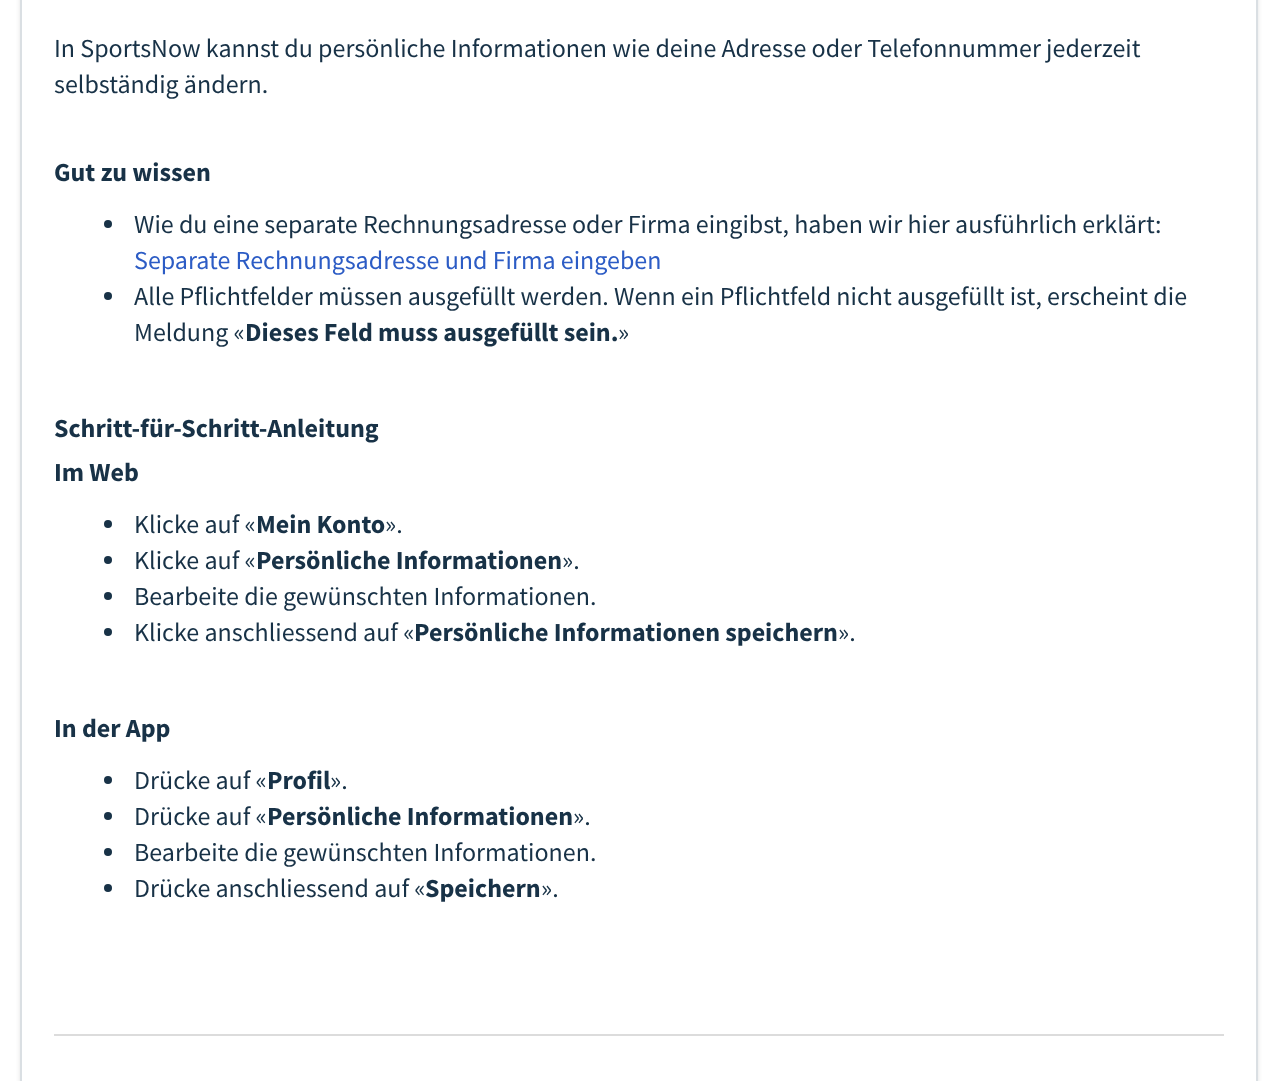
async function draw(canvas) {
  canvas.width = 1278
  canvas.height = 1081
  const ctx = canvas.getContext('2d')
  ctx.miterLimit = 4
  ctx.fontKerning = 'normal'

  ctx.fillStyle = '#fff'
  ctx.fillRect(0, 0, 1278, 1081)
  ctx.fillStyle = '#3f3f4426'
  ctx.filter = 'blur(2px)'
  ctx.beginPath()
  ctx.roundRect(20, -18, 1238, 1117, 12)
  ctx.fill()
  ctx.filter = 'none'
  ctx.fillStyle = '#fff'
  ctx.beginPath()
  ctx.rect(21, -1, 1236, 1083)
  ctx.fill()
  ctx.strokeStyle = '#dadfe3'
  ctx.lineWidth = 2
  ctx.stroke()
  ctx.font = '26px Source Sans Pro'
  ctx.fillStyle = '#183247'
  ctx.fillText('In SportsNow kannst du persönliche Informationen wie deine Adresse oder Telefonnummer jederzeit', 54, 57)
  ctx.fillText('selbständig ändern.', 54, 93)
  ctx.font = 'bold 26px Source Sans Pro'
  ctx.fillText('Gut zu wissen', 54, 181)
  ctx.beginPath()
  ctx.arc(108, 224, 4, 0, 2 * Math.PI)
  ctx.fill()
  ctx.font = '26px Source Sans Pro'
  ctx.fillText('Wie du eine separate Rechnungsadresse oder Firma eingibst, haben wir hier ausführlich erklärt:', 134, 233)
  ctx.fillStyle = '#2c5cc5'
  ctx.fillText('Separate Rechnungsadresse und Firma eingeben', 134, 269)
  ctx.fillStyle = '#183247'
  ctx.beginPath()
  ctx.arc(108, 296, 4, 0, 2 * Math.PI)
  ctx.fill()
  ctx.fillText('Alle Pflichtfelder müssen ausgefüllt werden. Wenn ein Pflichtfeld nicht ausgefüllt ist, erscheint die', 134, 305)
  ctx.fillText('Meldung «', 134, 341)
  ctx.font = 'bold 26px Source Sans Pro'
  ctx.fillText('Dieses Feld muss ausgefüllt sein.', 245, 341)
  ctx.font = '26px Source Sans Pro'
  ctx.fillText('»', 618, 341)
  ctx.font = 'bold 26px Source Sans Pro'
  ctx.fillText('Schritt-für-Schritt-Anleitung', 54, 437)
  ctx.fillText('Im Web', 54, 481)
  ctx.beginPath()
  ctx.arc(108, 524, 4, 0, 2 * Math.PI)
  ctx.fill()
  ctx.font = '26px Source Sans Pro'
  ctx.fillText('Klicke auf «', 134, 533)
  ctx.font = 'bold 26px Source Sans Pro'
  ctx.fillText('Mein Konto', 256, 533)
  ctx.font = '26px Source Sans Pro'
  ctx.fillText('».', 385, 533)
  ctx.beginPath()
  ctx.arc(108, 560, 4, 0, 2 * Math.PI)
  ctx.fill()
  ctx.fillText('Klicke auf «', 134, 569)
  ctx.font = 'bold 26px Source Sans Pro'
  ctx.fillText('Persönliche Informationen', 256, 569)
  ctx.font = '26px Source Sans Pro'
  ctx.fillText('».', 562, 569)
  ctx.beginPath()
  ctx.arc(108, 596, 4, 0, 2 * Math.PI)
  ctx.fill()
  ctx.fillText('Bearbeite die gewünschten Informationen.', 134, 605)
  ctx.beginPath()
  ctx.arc(108, 632, 4, 0, 2 * Math.PI)
  ctx.fill()
  ctx.fillText('Klicke anschliessend auf «', 134, 641)
  ctx.font = 'bold 26px Source Sans Pro'
  ctx.fillText('Persönliche Informationen speichern', 414, 641)
  ctx.font = '26px Source Sans Pro'
  ctx.fillText('».', 838, 641)
  ctx.font = 'bold 26px Source Sans Pro'
  ctx.fillText('In der App', 54, 737)
  ctx.beginPath()
  ctx.arc(108, 780, 4, 0, 2 * Math.PI)
  ctx.fill()
  ctx.font = '26px Source Sans Pro'
  ctx.fillText('Drücke auf «', 134, 789)
  ctx.font = 'bold 26px Source Sans Pro'
  ctx.fillText('Profil', 267, 789)
  ctx.font = '26px Source Sans Pro'
  ctx.fillText('».', 330, 789)
  ctx.beginPath()
  ctx.arc(108, 816, 4, 0, 2 * Math.PI)
  ctx.fill()
  ctx.fillText('Drücke auf «', 134, 825)
  ctx.font = 'bold 26px Source Sans Pro'
  ctx.fillText('Persönliche Informationen', 267, 825)
  ctx.font = '26px Source Sans Pro'
  ctx.fillText('».', 573, 825)
  ctx.beginPath()
  ctx.arc(108, 852, 4, 0, 2 * Math.PI)
  ctx.fill()
  ctx.fillText('Bearbeite die gewünschten Informationen.', 134, 861)
  ctx.beginPath()
  ctx.arc(108, 888, 4, 0, 2 * Math.PI)
  ctx.fill()
  ctx.fillText('Drücke anschliessend auf «', 134, 897)
  ctx.font = 'bold 26px Source Sans Pro'
  ctx.fillText('Speichern', 425, 897)
  ctx.font = '26px Source Sans Pro'
  ctx.fillText('».', 541, 897)
  ctx.fillStyle = '#dcdcdc'
  ctx.fillRect(54, 1034, 1170, 2)
}

draw(document.querySelector('canvas'))
